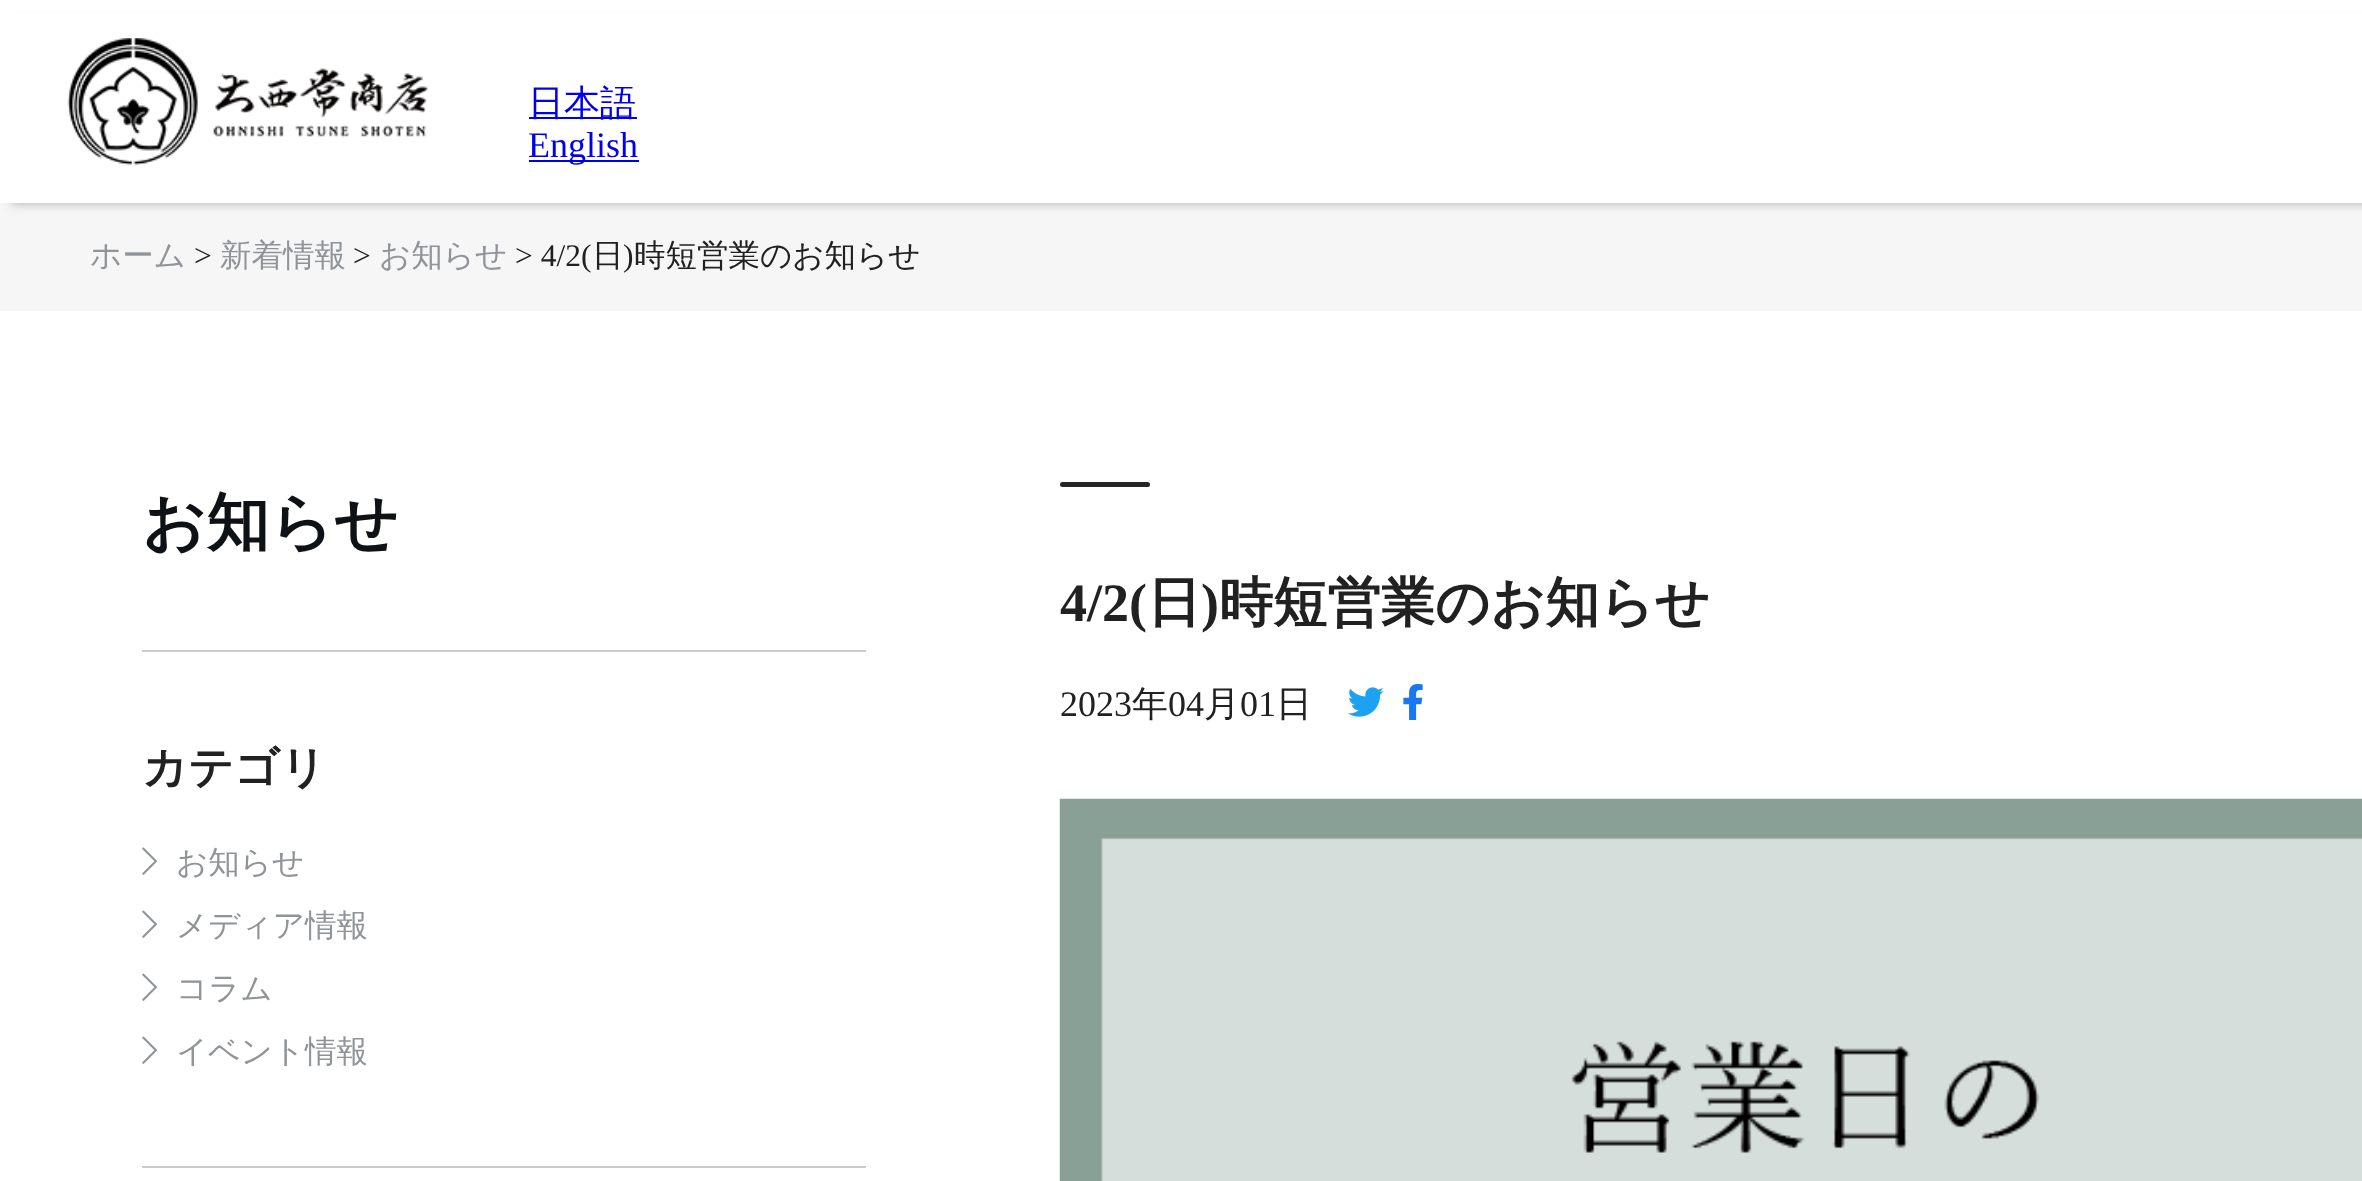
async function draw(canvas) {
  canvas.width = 2362
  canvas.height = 1181
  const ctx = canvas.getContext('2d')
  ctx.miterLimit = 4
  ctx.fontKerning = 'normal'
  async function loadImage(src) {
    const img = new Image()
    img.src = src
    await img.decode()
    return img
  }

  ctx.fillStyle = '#fff'
  ctx.fillRect(0, 0, 2362, 1181)
  ctx.fillStyle = '#f6f6f6'
  ctx.fillRect(0, 203, 2362, 108)
  ctx.fillStyle = '#0000004d'
  ctx.filter = 'blur(5.5px)'
  ctx.beginPath()
  ctx.rect(11, 23, 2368, 180)
  ctx.fill()
  ctx.filter = 'none'
  ctx.fillStyle = '#fff'
  ctx.fillRect(1, 13, 2361, 190)
  ctx.drawImage(await loadImage('image0.png'), 67, 38, 361, 128)
  ctx.fillStyle = '#00e'
  ctx.fillRect(529, 117, 108, 2)
  ctx.font = '500 36px WenQuanYi Zen Hei'
  ctx.fillText('日本語', 528, 115)
  ctx.fillRect(529, 160, 110, 2)
  ctx.font = '36px Liberation Serif'
  ctx.fillText('English', 528, 157)
  ctx.font = '500 31.5px WenQuanYi Zen Hei'
  ctx.fillStyle = '#909499'
  ctx.fillText('ホーム', 90, 266)
  ctx.font = '31.5px Liberation Serif'
  ctx.fillStyle = '#212121'
  ctx.fillText('>', 194, 266)
  ctx.font = '500 31.5px WenQuanYi Zen Hei'
  ctx.fillStyle = '#909499'
  ctx.fillText('新着情報', 220, 266)
  ctx.font = '31.5px Liberation Serif'
  ctx.fillStyle = '#212121'
  ctx.fillText('>', 353, 266)
  ctx.font = '500 31.5px WenQuanYi Zen Hei'
  ctx.fillStyle = '#909499'
  ctx.fillText('お知らせ', 379, 266)
  ctx.font = '31.5px Liberation Serif'
  ctx.fillStyle = '#212121'
  ctx.fillText('> 4/2(', 515, 266)
  ctx.font = '500 31.5px WenQuanYi Zen Hei'
  ctx.fillText('日', 592, 266)
  ctx.font = '31.5px Liberation Serif'
  ctx.fillText(')', 623, 266)
  ctx.font = '500 31.5px WenQuanYi Zen Hei'
  ctx.fillText('時短営業のお知らせ', 634, 266)
  ctx.font = 'bold 63px WenQuanYi Zen Hei'
  ctx.fillStyle = '#0e1116'
  ctx.fillText('お知らせ', 142, 544)
  ctx.fillStyle = '#ccc'
  ctx.fillRect(142, 650, 724, 2)
  ctx.font = 'bold 45px WenQuanYi Zen Hei'
  ctx.fillStyle = '#212121'
  ctx.fillText('カテゴリ', 142, 783)
  ctx.drawImage(await loadImage('image1.png'), 142, 847, 15, 28)
  ctx.font = '500 31.5px WenQuanYi Zen Hei'
  ctx.fillStyle = '#909499'
  ctx.fillText('お知らせ', 176, 873)
  ctx.drawImage(await loadImage('image1.png'), 142, 910, 15, 28)
  ctx.fillText('メディア情報', 176, 936)
  ctx.drawImage(await loadImage('image1.png'), 142, 973, 15, 28)
  ctx.fillText('コラム', 176, 999)
  ctx.drawImage(await loadImage('image1.png'), 142, 1036, 15, 28)
  ctx.fillText('イベント情報', 176, 1062)
  ctx.fillStyle = '#ccc'
  ctx.fillRect(142, 1166, 724, 2)
  ctx.fillStyle = '#262626'
  ctx.beginPath()
  ctx.roundRect(1060, 482, 90, 5, 2.5)
  ctx.fill()
  ctx.font = 'bold 54px Liberation Serif'
  ctx.fillStyle = '#212121'
  ctx.fillText('4/2(', 1060, 621)
  ctx.font = 'bold 54px WenQuanYi Zen Hei'
  ctx.fillText('日', 1147, 621)
  ctx.font = 'bold 54px Liberation Serif'
  ctx.fillText(')', 1201, 621)
  ctx.font = 'bold 54px WenQuanYi Zen Hei'
  ctx.fillText('時短営業のお知らせ', 1219, 621)
  ctx.font = '36px Liberation Serif'
  ctx.fillText('2023', 1060, 716)
  ctx.font = '500 36px WenQuanYi Zen Hei'
  ctx.fillText('年', 1132, 716)
  ctx.font = '36px Liberation Serif'
  ctx.fillText('04', 1168, 716)
  ctx.font = '500 36px WenQuanYi Zen Hei'
  ctx.fillText('月', 1204, 716)
  ctx.font = '36px Liberation Serif'
  ctx.fillText('01', 1240, 716)
  ctx.font = '500 36px WenQuanYi Zen Hei'
  ctx.fillText('日', 1276, 716)
  ctx.drawImage(await loadImage('image2.png'), 1348, 687, 36, 30)
  ctx.drawImage(await loadImage('image3.png'), 1403, 684, 20, 36)
  ctx.drawImage(await loadImage('image4.png'), 1059, 798, 1303, 383)
}

draw(document.querySelector('canvas'))
